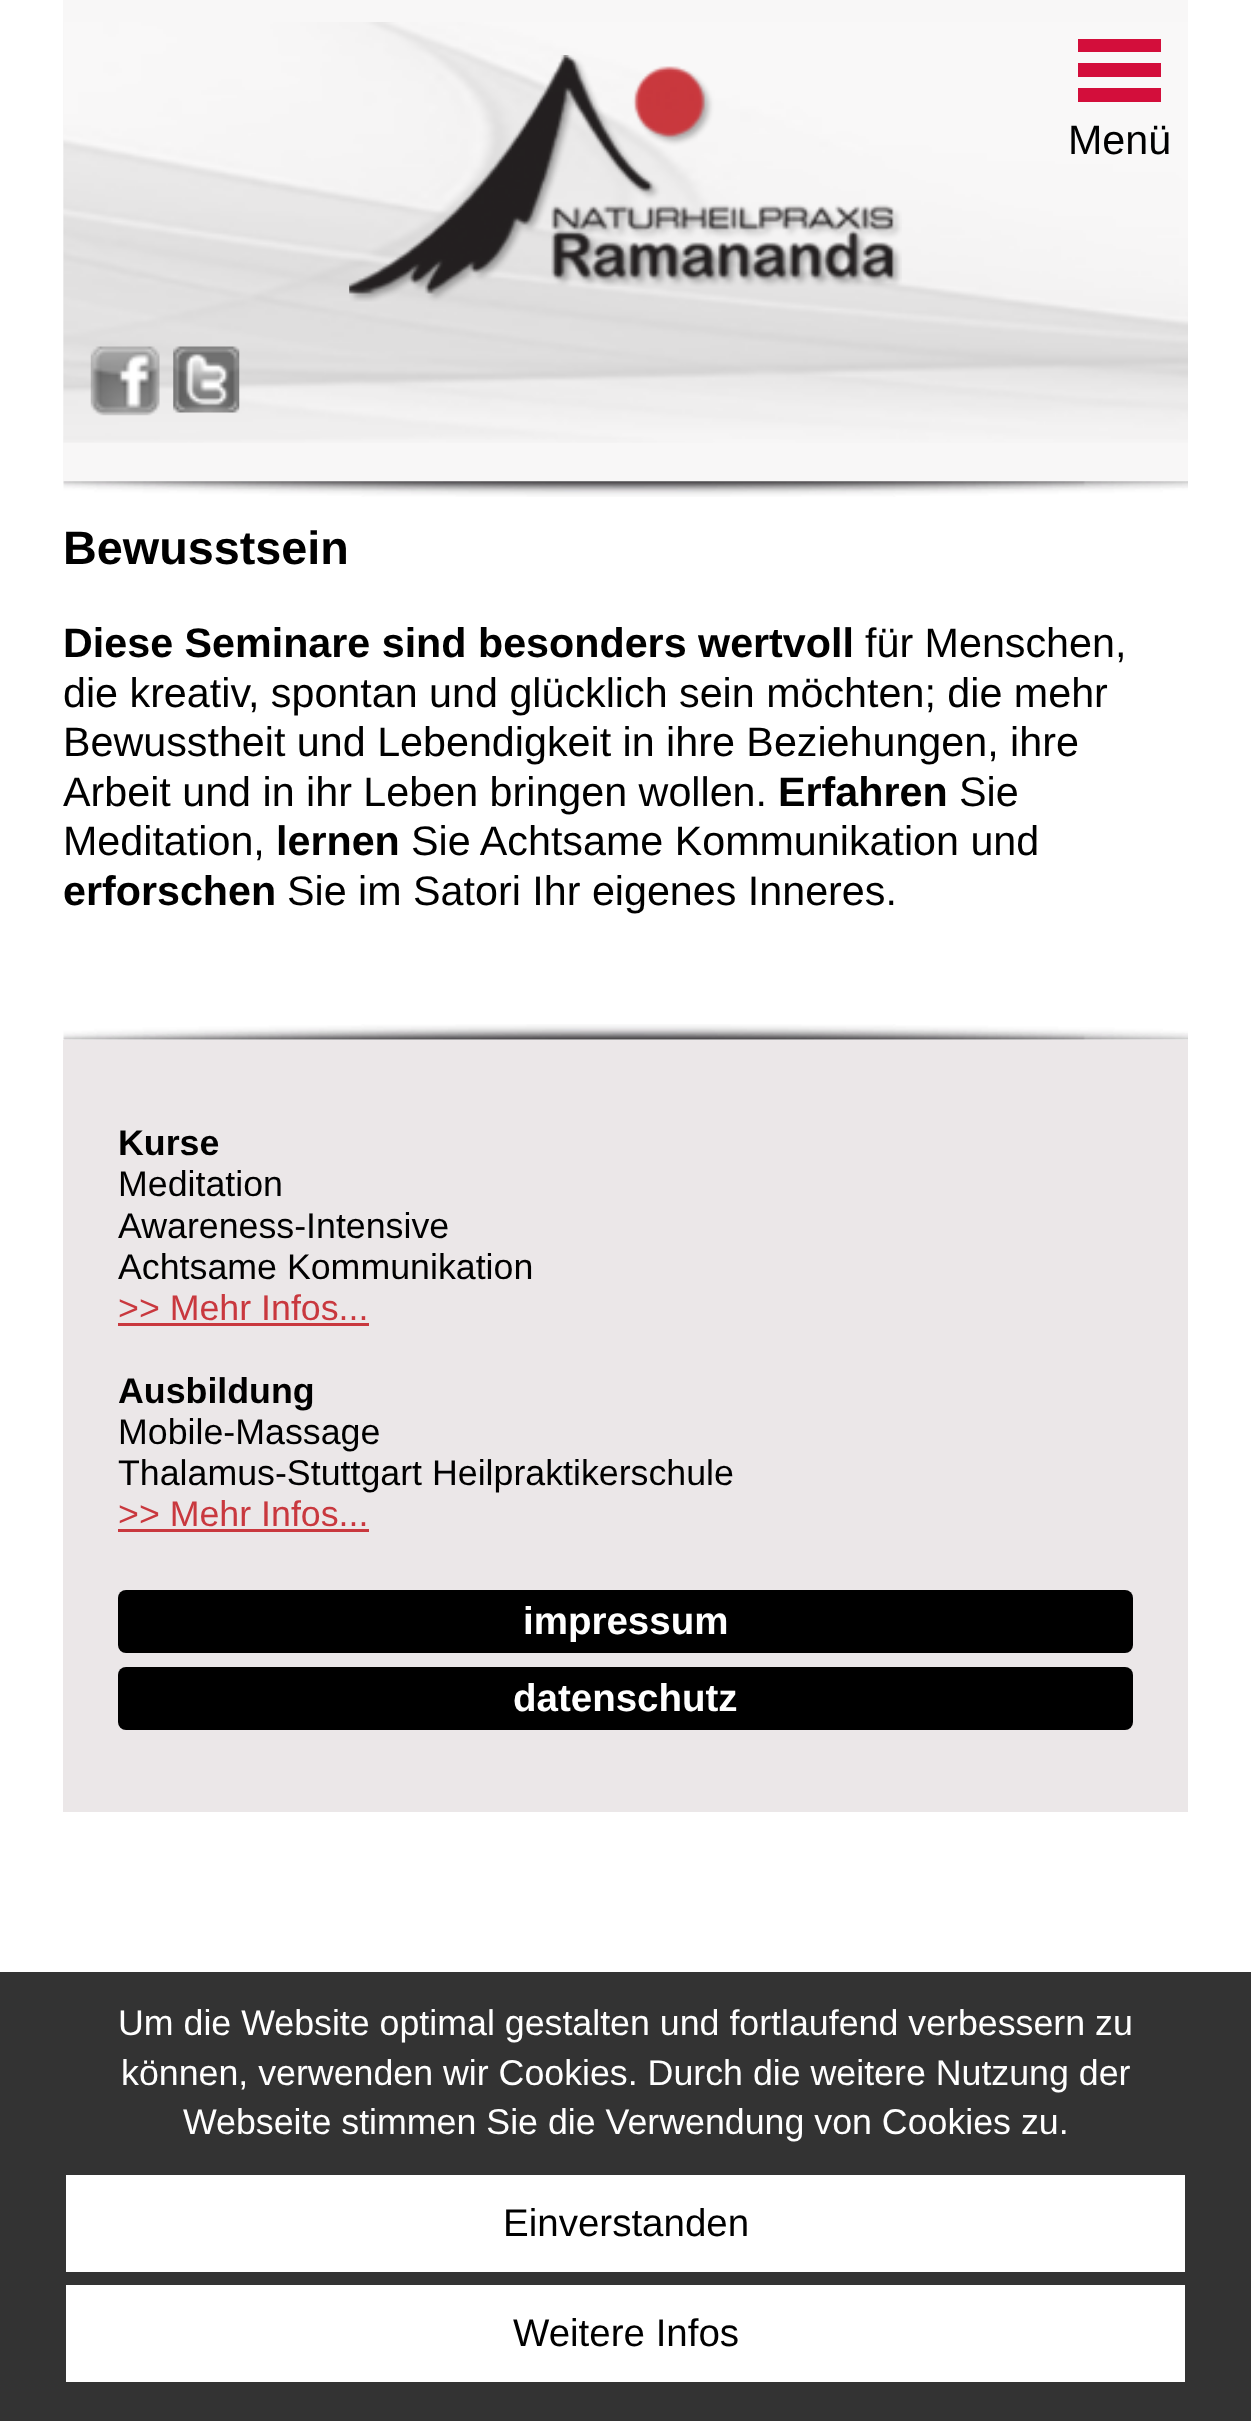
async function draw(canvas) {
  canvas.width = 1251
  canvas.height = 2421
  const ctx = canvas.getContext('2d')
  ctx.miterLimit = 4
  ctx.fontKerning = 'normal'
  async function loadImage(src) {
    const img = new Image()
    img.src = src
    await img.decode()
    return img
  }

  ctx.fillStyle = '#fff'
  ctx.fillRect(0, 0, 1251, 2421)
  ctx.fillStyle = '#f8f7f7'
  ctx.fillRect(63, 0, 1125, 481)
  ctx.drawImage(await loadImage('image0.png'), 63, 22, 1125, 421)
  ctx.drawImage(await loadImage('image1.png'), 349, 55, 553, 247)
  ctx.fillStyle = '#d30e3b'
  ctx.fillRect(1078, 39, 83, 13)
  ctx.fillRect(1078, 63, 83, 14)
  ctx.fillRect(1078, 88, 83, 14)
  ctx.font = '41.25px Liberation Sans'
  ctx.fillStyle = '#000'
  ctx.fillText('Menü', 1068, 154)
  ctx.drawImage(await loadImage('image2.png'), 90, 346, 70, 70)
  ctx.drawImage(await loadImage('image3.png'), 173, 346, 67, 67)
  ctx.drawImage(await loadImage('image4.png'), 63, 481, 1125, 16)
  ctx.font = 'bold 46.75px Liberation Sans'
  ctx.fillText('Bewusstsein', 63, 564)
  ctx.font = 'bold 41.25px Liberation Sans'
  ctx.fillText('Diese Seminare sind besonders wertvoll', 63, 657)
  ctx.font = '41.25px Liberation Sans'
  ctx.fillText('für Menschen,', 865, 657)
  ctx.fillText('die kreativ, spontan und glücklich sein möchten; die mehr', 63, 707)
  ctx.fillText('Bewusstheit und Lebendigkeit in ihre Beziehungen, ihre', 63, 756)
  ctx.fillText('Arbeit und in ihr Leben bringen wollen.', 63, 806)
  ctx.font = 'bold 41.25px Liberation Sans'
  ctx.fillText('Erfahren', 778, 806)
  ctx.font = '41.25px Liberation Sans'
  ctx.fillText('Sie', 959, 806)
  ctx.fillText('Meditation,', 63, 855)
  ctx.font = 'bold 41.25px Liberation Sans'
  ctx.fillText('lernen', 276, 855)
  ctx.font = '41.25px Liberation Sans'
  ctx.fillText('Sie Achtsame Kommunikation und', 411, 855)
  ctx.font = 'bold 41.25px Liberation Sans'
  ctx.fillText('erforschen', 63, 905)
  ctx.font = '41.25px Liberation Sans'
  ctx.fillText('Sie im Satori Ihr eigenes Inneres.', 287, 905)
  ctx.fillStyle = '#ebe7e8'
  ctx.fillRect(63, 1040, 1125, 772)
  ctx.drawImage(await loadImage('image5.png'), 63, 1024, 1125, 16)
  ctx.font = 'bold 35.75px Liberation Sans'
  ctx.fillStyle = '#000'
  ctx.fillText('Kurse', 118, 1155)
  ctx.font = '35.75px Liberation Sans'
  ctx.fillText('Meditation', 118, 1196)
  ctx.fillText('Awareness-Intensive', 118, 1238)
  ctx.fillText('Achtsame Kommunikation', 118, 1279)
  ctx.fillStyle = '#c9383e'
  ctx.fillText('>> Mehr Infos...', 118, 1320)
  ctx.fillRect(118, 1323, 251, 3)
  ctx.font = 'bold 35.75px Liberation Sans'
  ctx.fillStyle = '#000'
  ctx.fillText('Ausbildung', 118, 1403)
  ctx.font = '35.75px Liberation Sans'
  ctx.fillText('Mobile-Massage', 118, 1444)
  ctx.fillText('Thalamus-Stuttgart Heilpraktikerschule', 118, 1485)
  ctx.fillStyle = '#c9383e'
  ctx.fillText('>> Mehr Infos...', 118, 1526)
  ctx.fillRect(118, 1529, 251, 3)
  ctx.fillStyle = '#000'
  ctx.beginPath()
  ctx.roundRect(118, 1590, 1015, 63, 8)
  ctx.fill()
  ctx.font = 'bold 38.5px Liberation Sans'
  ctx.fillStyle = '#fff'
  ctx.fillText('impressum', 523, 1634)
  ctx.fillStyle = '#000'
  ctx.beginPath()
  ctx.roundRect(118, 1667, 1015, 63, 8)
  ctx.fill()
  ctx.fillStyle = '#fff'
  ctx.fillText('datenschutz', 513, 1711)
  ctx.fillStyle = '#333'
  ctx.fillRect(0, 1972, 1251, 449)
  ctx.font = '35.75px Liberation Sans'
  ctx.fillStyle = '#fff'
  ctx.fillText('Um die Website optimal gestalten und fortlaufend verbessern zu', 118, 2035)
  ctx.fillText('können, verwenden wir Cookies. Durch die weitere Nutzung der', 121, 2085)
  ctx.fillText('Webseite stimmen Sie die Verwendung von Cookies zu.', 183, 2134)
  ctx.fillRect(66, 2175, 1119, 97)
  ctx.font = '38.5px Liberation Sans'
  ctx.fillStyle = '#000'
  ctx.fillText('Einverstanden', 503, 2236)
  ctx.fillStyle = '#fff'
  ctx.fillRect(66, 2285, 1119, 97)
  ctx.fillStyle = '#000'
  ctx.fillText('Weitere Infos', 513, 2346)
}

draw(document.querySelector('canvas'))
